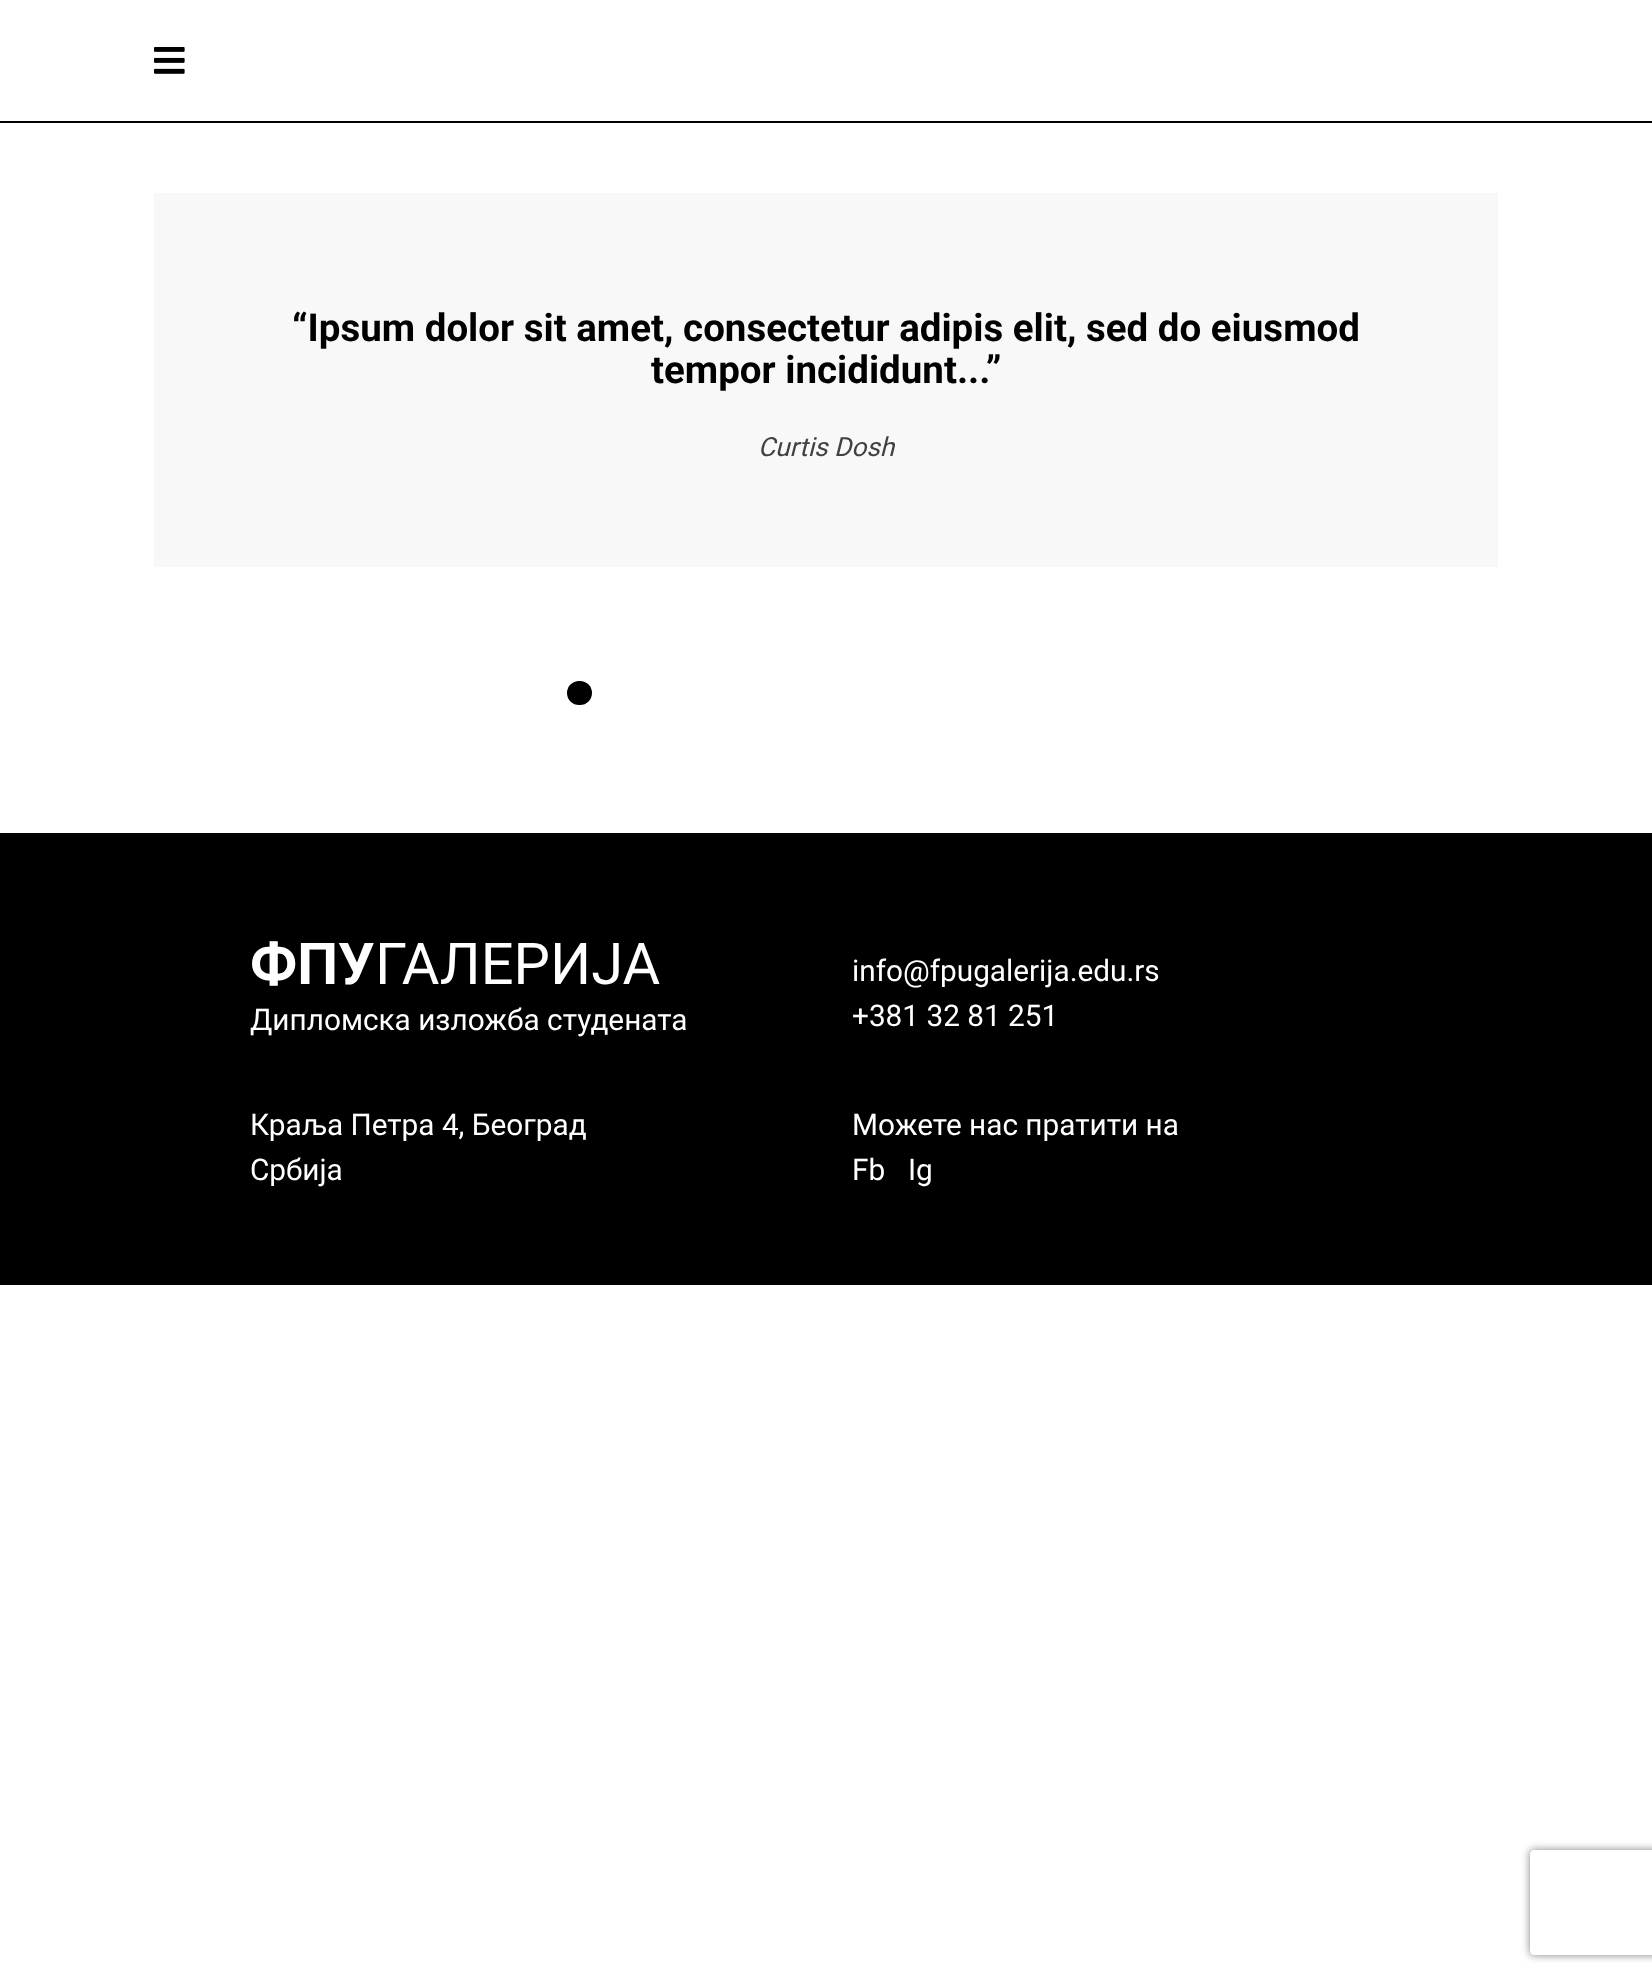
async function draw(canvas) {
  canvas.width = 1652
  canvas.height = 1979
  const ctx = canvas.getContext('2d')
  ctx.miterLimit = 4
  ctx.fontKerning = 'normal'
  async function loadImage(src) {
    const img = new Image()
    img.src = src
    await img.decode()
    return img
  }

  ctx.fillStyle = '#fff'
  ctx.fillRect(0, 0, 1652, 1979)
  ctx.fillStyle = '#000'
  ctx.fillRect(0, 121, 1652, 2)
  ctx.drawImage(await loadImage('image0.png'), 154, 47, 31, 27)
  ctx.fillStyle = '#f8f8f8'
  ctx.fillRect(154, 193, 1344, 374)
  ctx.font = 'bold 38.5px Roboto'
  ctx.fillStyle = '#000'
  ctx.fillText('“Ipsum dolor sit amet, consectetur adipis elit, sed do eiusmod', 292, 341)
  ctx.fillText('tempor incididunt...”', 651, 383)
  ctx.font = 'italic 26.25px Roboto'
  ctx.fillStyle = '#414042'
  ctx.fillText('Curtis Dosh', 758, 456)
  ctx.fillStyle = '#000'
  ctx.fillRect(0, 833, 1652, 452)
  ctx.font = 'bold 57.75px Roboto'
  ctx.fillStyle = '#fff'
  ctx.fillText('ФПУ', 250, 984)
  ctx.font = '57.75px Roboto'
  ctx.fillText('ГАЛЕРИЈА', 375, 984)
  ctx.font = '29.75px Roboto'
  ctx.fillText('Дипломска изложба студената', 250, 1030)
  ctx.fillText('info@fpugalerija.edu.rs', 852, 981)
  ctx.fillText('+381 32 81 251', 852, 1026)
  ctx.fillText('Краља Петра 4, Београд', 250, 1135)
  ctx.fillText('Србија', 250, 1180)
  ctx.fillText('Можете нас пратити на', 852, 1135)
  ctx.fillText('Fb', 852, 1180)
  ctx.fillText('Ig', 908, 1180)
  ctx.fillStyle = '#000'
  ctx.beginPath()
  ctx.roundRect(567, 681, 25, 24, 12)
  ctx.fill()
  ctx.save()
  ctx.beginPath()
  ctx.moveTo(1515, 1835)
  ctx.lineTo(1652, 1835)
  ctx.lineTo(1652, 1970)
  ctx.lineTo(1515, 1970)
  ctx.closePath()
  ctx.moveTo(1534, 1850)
  ctx.lineTo(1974, 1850)
  ctx.bezierCurveTo(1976, 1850, 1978, 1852, 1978, 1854)
  ctx.lineTo(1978, 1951)
  ctx.bezierCurveTo(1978, 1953, 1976, 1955, 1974, 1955)
  ctx.lineTo(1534, 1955)
  ctx.bezierCurveTo(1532, 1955, 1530, 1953, 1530, 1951)
  ctx.lineTo(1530, 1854)
  ctx.bezierCurveTo(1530, 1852, 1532, 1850, 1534, 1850)
  ctx.closePath()
  ctx.clip('evenodd')
  ctx.fillStyle = '#808080'
  ctx.filter = 'blur(4.5px)'
  ctx.beginPath()
  ctx.roundRect(1530, 1850, 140, 105, 4)
  ctx.fill()
  ctx.filter = 'none'
  ctx.restore()
}

draw(document.querySelector('canvas'))
